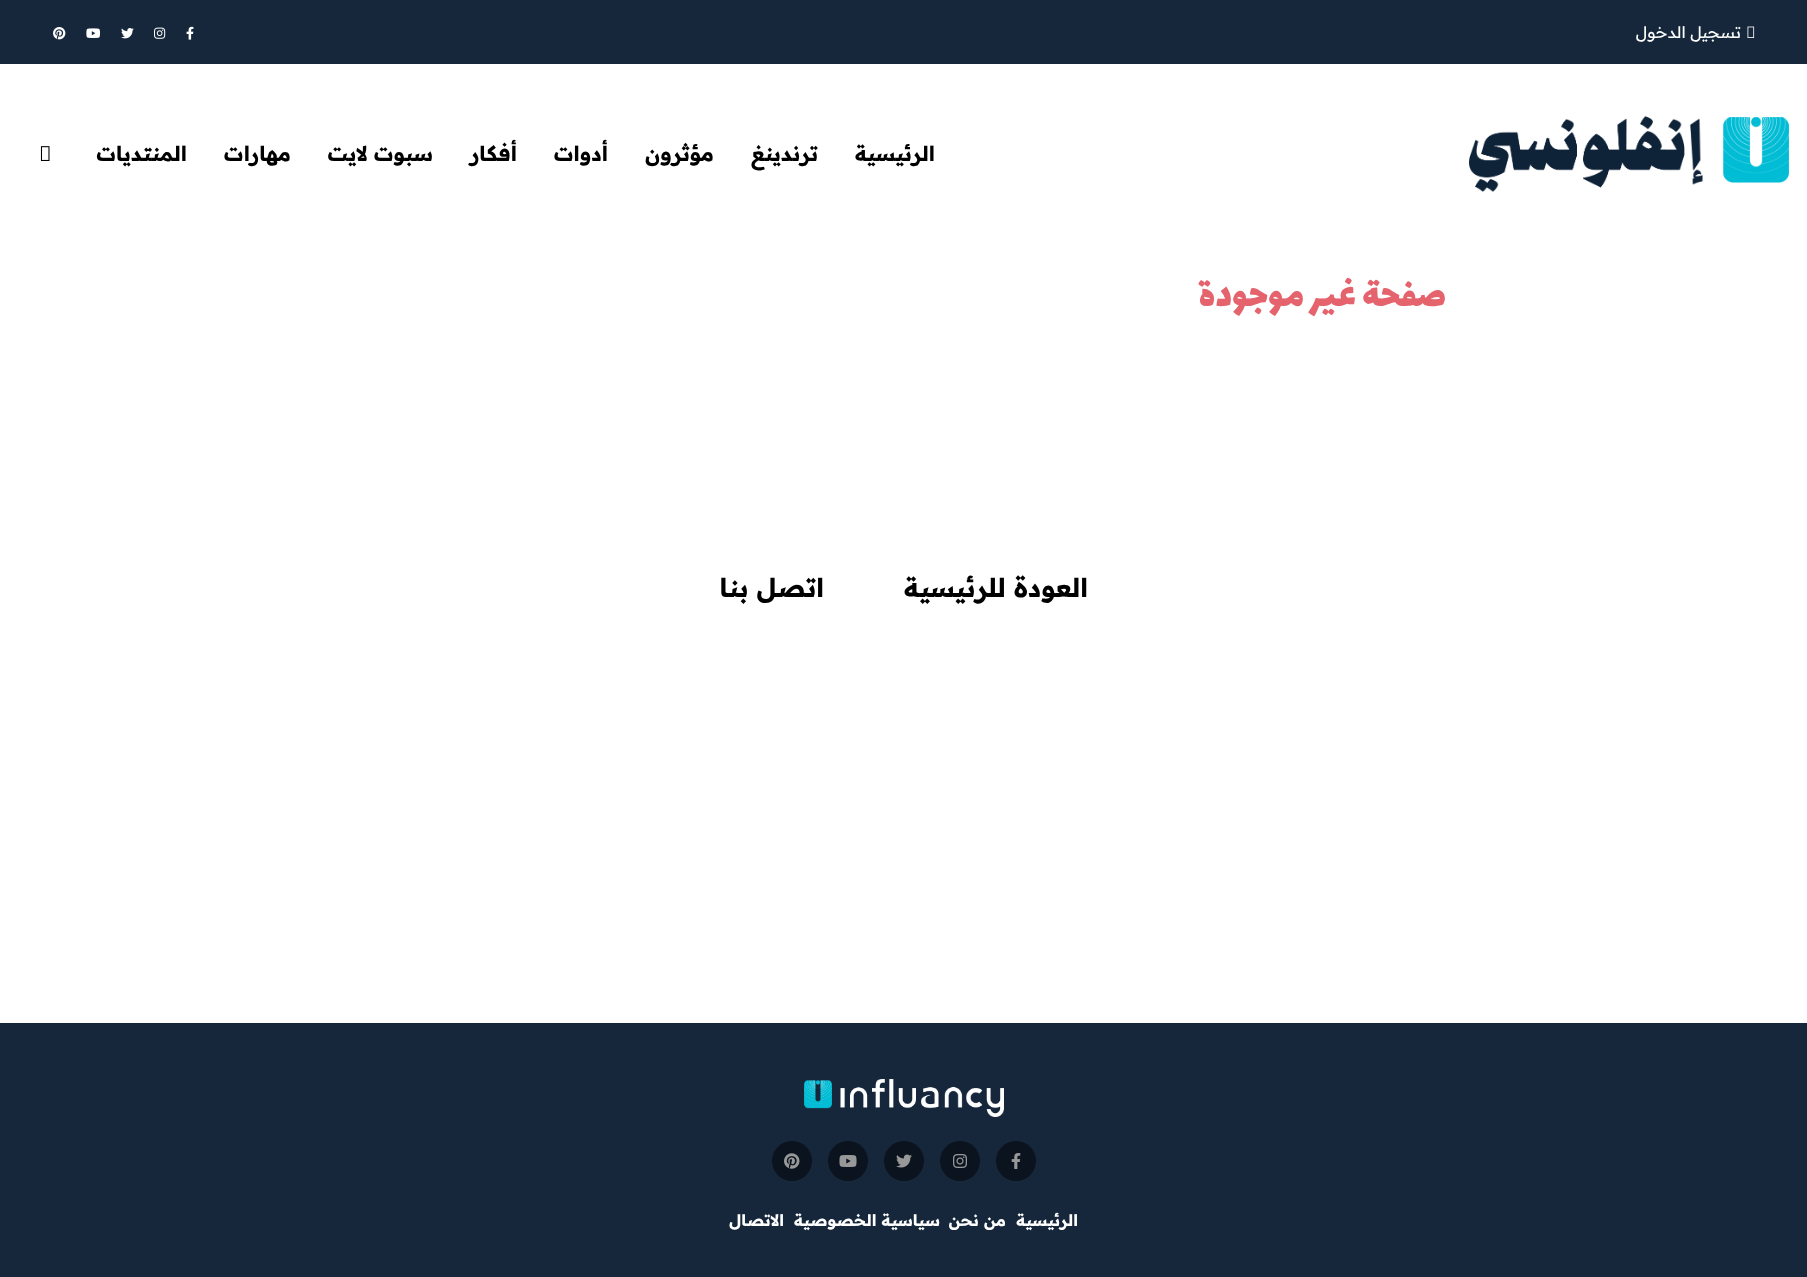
async function draw(canvas) {
  canvas.width = 1807
  canvas.height = 1277
  const ctx = canvas.getContext('2d')
  ctx.miterLimit = 4
  ctx.fontKerning = 'normal'
  async function loadImage(src) {
    const img = new Image()
    img.src = src
    await img.decode()
    return img
  }

  ctx.fillStyle = '#fff'
  ctx.fillRect(0, 0, 1807, 1277)
  ctx.fillStyle = '#16273b'
  ctx.fillRect(0, 0, 1807, 64)
  ctx.drawImage(await loadImage('image0.png'), 1747, 26, 8, 12)
  ctx.direction = 'rtl'
  ctx.font = '16px Readex Pro'
  ctx.fillStyle = '#fff'
  ctx.fillText('تسجيل الدخول', 1741, 38)
  ctx.drawImage(await loadImage('image1.png'), 186, 26, 8, 14)
  ctx.drawImage(await loadImage('image2.png'), 154, 27, 12, 12)
  ctx.drawImage(await loadImage('image3.png'), 121, 28, 13, 11)
  ctx.drawImage(await loadImage('image4.png'), 86, 28, 15, 10)
  ctx.drawImage(await loadImage('image5.png'), 53, 27, 13, 13)
  ctx.drawImage(await loadImage('image6.png'), 1469, 116, 320, 76)
  ctx.font = 'bold 20.75px Readex Pro'
  ctx.fillStyle = '#000'
  ctx.fillText('الرئيسية', 935, 161)
  ctx.fillText('ترندينغ', 818, 161)
  ctx.fillText('مؤثرون', 714, 161)
  ctx.fillText('أدوات', 608, 161)
  ctx.fillText('أفكار', 517, 161)
  ctx.fillText('سبوت لايت', 433, 161)
  ctx.fillText('مهارات', 291, 161)
  ctx.fillText('المنتديات', 187, 161)
  ctx.drawImage(await loadImage('image7.png'), 40, 146, 10, 15)
  ctx.font = '40px Lalezar'
  ctx.fillStyle = '#e5636d'
  ctx.fillText('صفحة غير موجودة', 1446, 306)
  ctx.font = 'bold 26px Readex Pro'
  ctx.fillStyle = '#000'
  ctx.fillText('العودة للرئيسية', 1088, 597)
  ctx.fillText('اتصل بنا', 824, 597)
  ctx.fillStyle = '#16273b'
  ctx.fillRect(0, 1023, 1807, 254)
  ctx.drawImage(await loadImage('image8.png'), 804, 1079, 200, 38)
  ctx.fillStyle = '#0b141e'
  ctx.beginPath()
  ctx.arc(1016, 1161, 20, 0, 2 * Math.PI)
  ctx.fill()
  ctx.drawImage(await loadImage('image9.png'), 1011, 1153, 10, 16)
  ctx.beginPath()
  ctx.arc(960, 1161, 20, 0, 2 * Math.PI)
  ctx.fill()
  ctx.drawImage(await loadImage('image10.png'), 953, 1154, 14, 14)
  ctx.beginPath()
  ctx.arc(904, 1161, 20, 0, 2 * Math.PI)
  ctx.fill()
  ctx.drawImage(await loadImage('image11.png'), 896, 1154, 16, 14)
  ctx.beginPath()
  ctx.arc(848, 1161, 20, 0, 2 * Math.PI)
  ctx.fill()
  ctx.drawImage(await loadImage('image12.png'), 839, 1155, 18, 12)
  ctx.beginPath()
  ctx.arc(792, 1161, 20, 0, 2 * Math.PI)
  ctx.fill()
  ctx.drawImage(await loadImage('image13.png'), 784, 1153, 16, 16)
  ctx.font = 'bold 16px Readex Pro'
  ctx.fillStyle = '#fff'
  ctx.fillText('الرئيسية', 1078, 1226)
  ctx.fillText('من نحن', 1006, 1226)
  ctx.fillText('سياسية الخصوصية', 940, 1226)
  ctx.fillText('الاتصال', 784, 1226)
}

draw(document.querySelector('canvas'))
